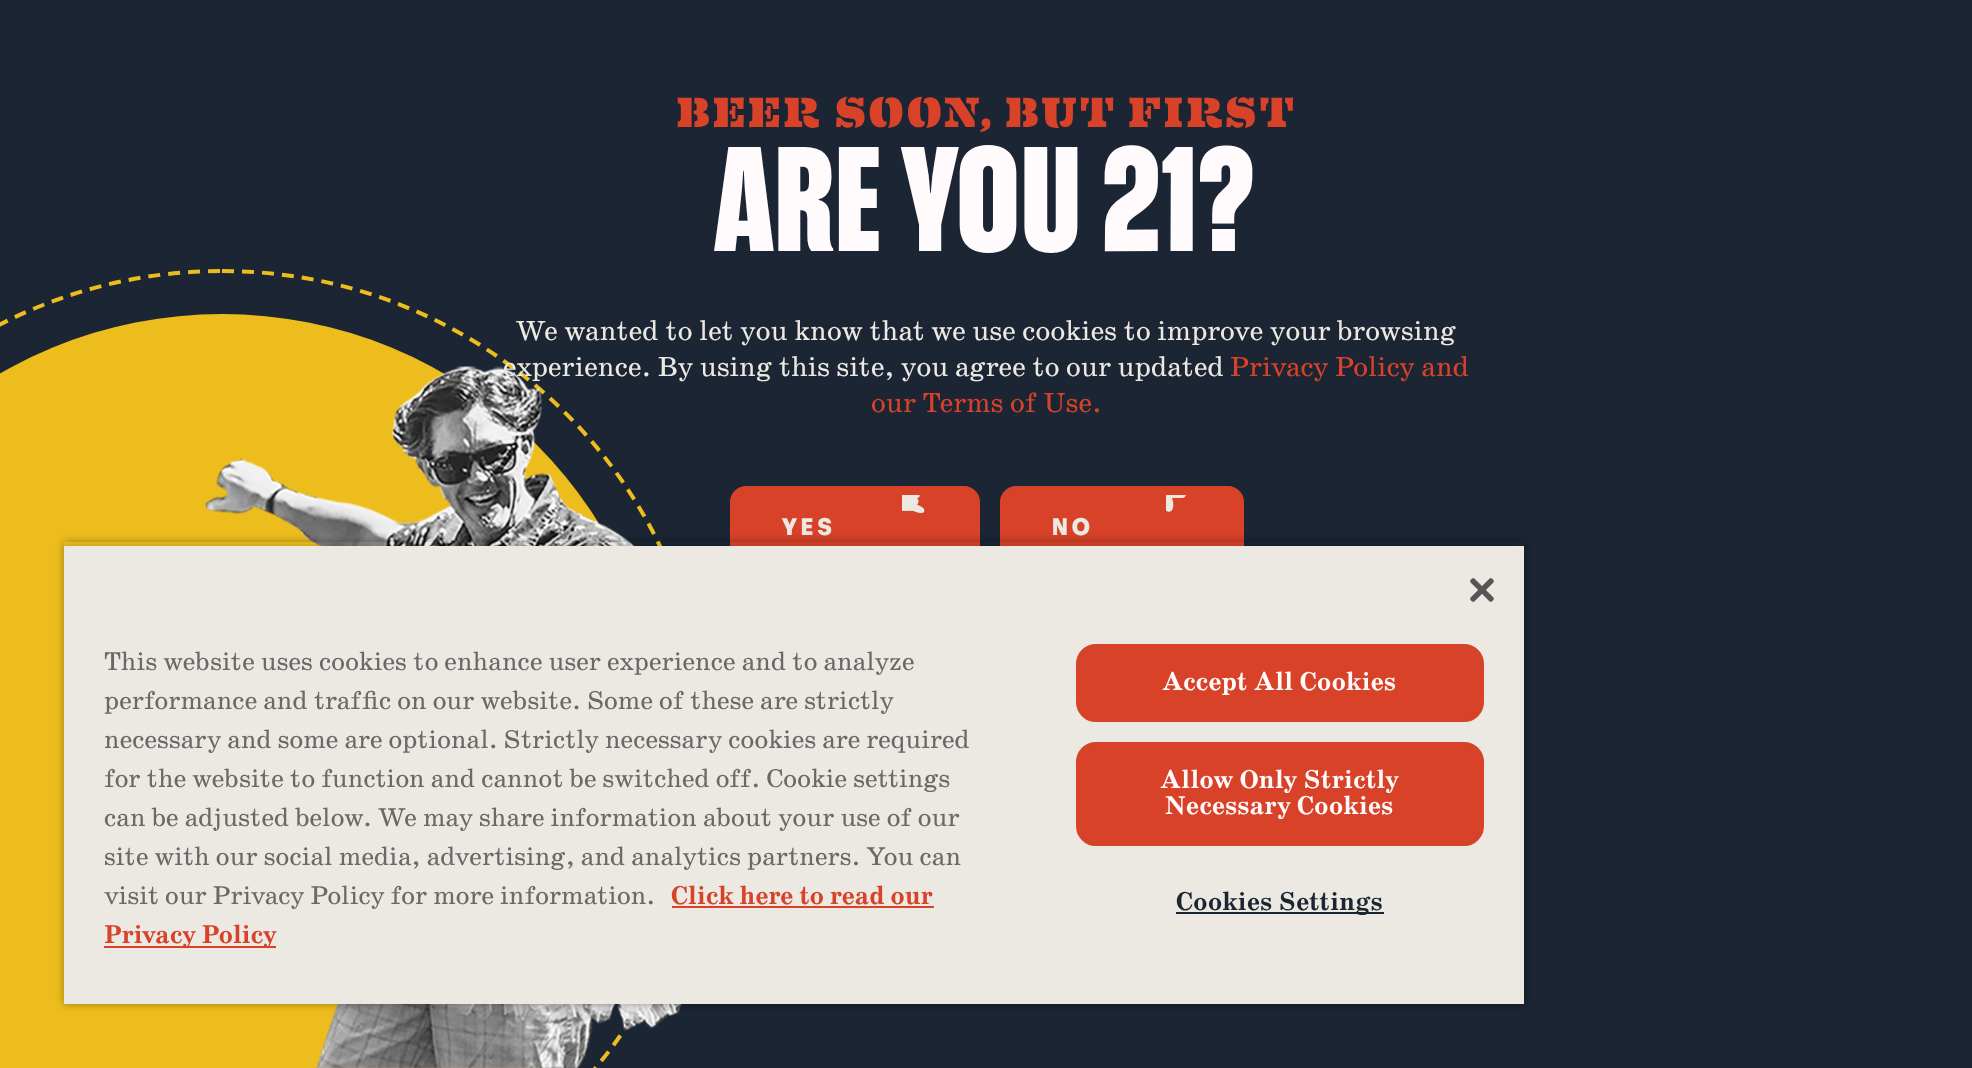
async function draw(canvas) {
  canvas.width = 1972
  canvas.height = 1068
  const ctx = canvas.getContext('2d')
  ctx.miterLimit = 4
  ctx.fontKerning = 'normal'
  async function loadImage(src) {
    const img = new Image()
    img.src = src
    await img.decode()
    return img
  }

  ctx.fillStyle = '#1b2533'
  ctx.fillRect(0, 0, 1972, 1068)
  ctx.fillStyle = '#edbd1d'
  ctx.beginPath()
  ctx.arc(222, 758, 444, 0, 2 * Math.PI)
  ctx.fill()
  ctx.beginPath()
  ctx.moveTo(222, 271)
  ctx.bezierCurveTo(490.5, 271, 708, 488.5, 708, 757)
  ctx.bezierCurveTo(708, 1025.5, 490.5, 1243, 222, 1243)
  ctx.bezierCurveTo(-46.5, 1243, -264, 1025.5, -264, 757)
  ctx.bezierCurveTo(-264, 488.5, -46.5, 271, 222, 271)
  ctx.closePath()
  ctx.strokeStyle = '#edbd1d'
  ctx.lineWidth = 4
  ctx.setLineDash([12, 8])
  ctx.stroke()
  ctx.drawImage(await loadImage('image0.png'), 205, 366, 477, 702)
  ctx.letterSpacing = '2.1px'
  ctx.font = '900 42.6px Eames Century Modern'
  ctx.fillStyle = '#d74229'
  ctx.fillText('BEER SOON, BUT FIRST', 676, 127)
  ctx.letterSpacing = '1.5px'
  ctx.font = '148.5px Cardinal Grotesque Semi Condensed'
  ctx.fillStyle = '#fffafb'
  ctx.fillText('ARE YOU 21?', 715, 251)
  ctx.letterSpacing = '0px'
  ctx.font = '28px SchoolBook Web'
  ctx.fillStyle = '#ebe9e2'
  ctx.fillText('We wanted to let you know that we use cookies to improve your browsing', 516, 340)
  ctx.fillText('experience. By using this site, you agree to our updated', 503, 376)
  ctx.fillStyle = '#d74229'
  ctx.fillText('Privacy Policy and', 1230, 376)
  ctx.fillText('our Terms of Use.', 871, 412)
  ctx.beginPath()
  ctx.roundRect(733, 489, 244, 72, 13)
  ctx.fill()
  ctx.strokeStyle = '#d74229'
  ctx.lineWidth = 6
  ctx.setLineDash([])
  ctx.stroke()
  ctx.drawImage(await loadImage('image1.png'), 902, 495, 23, 18)
  ctx.letterSpacing = '4px'
  ctx.font = 'bold 24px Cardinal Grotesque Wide'
  ctx.fillStyle = '#ebe9e2'
  ctx.fillText('YES', 782, 535)
  ctx.fillStyle = '#d74229'
  ctx.beginPath()
  ctx.roundRect(1003, 489, 238, 72, 13)
  ctx.fill()
  ctx.stroke()
  ctx.drawImage(await loadImage('image2.png'), 1166, 495, 20, 17)
  ctx.fillStyle = '#ebe9e2'
  ctx.fillText('NO', 1052, 535)
  ctx.save()
  ctx.beginPath()
  ctx.moveTo(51, 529)
  ctx.lineTo(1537, 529)
  ctx.lineTo(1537, 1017)
  ctx.lineTo(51, 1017)
  ctx.closePath()
  ctx.moveTo(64, 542)
  ctx.lineTo(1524, 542)
  ctx.lineTo(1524, 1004)
  ctx.lineTo(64, 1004)
  ctx.closePath()
  ctx.clip('evenodd')
  ctx.fillStyle = '#00000059'
  ctx.filter = 'blur(4px)'
  ctx.beginPath()
  ctx.rect(64, 542, 1460, 462)
  ctx.fill()
  ctx.filter = 'none'
  ctx.restore()
  ctx.save()
  ctx.beginPath()
  ctx.rect(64, 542, 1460, 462)
  ctx.clip()
  ctx.fillStyle = '#00000033'
  ctx.filter = 'blur(4px)'
  ctx.beginPath()
  ctx.rect(64, 546, 1460, 458)
  ctx.fill()
  ctx.filter = 'none'
  ctx.restore()
  ctx.fillRect(64, 546, 1460, 458)
  ctx.drawImage(await loadImage('image3.png'), 1470, 578, 24, 24)
  ctx.letterSpacing = '0px'
  ctx.font = '26px SchoolBook Web'
  ctx.fillStyle = '#696969'
  ctx.fillText('This website uses cookies to enhance user experience and to analyze', 104, 670)
  ctx.fillText('performance and traffic on our website. Some of these are strictly', 104, 709)
  ctx.fillText('necessary and some are optional. Strictly necessary cookies are required', 104, 748)
  ctx.fillText('for the website to function and cannot be switched off. Cookie settings', 104, 787)
  ctx.fillText('can be adjusted below. We may share information about your use of our', 104, 826)
  ctx.fillText('site with our social media, advertising, and analytics partners. You can', 104, 865)
  ctx.fillText('visit our Privacy Policy for more information.', 104, 904)
  ctx.font = 'bold 26px SchoolBook Web'
  ctx.fillStyle = '#d74229'
  ctx.fillText('Click here to read our', 671, 904)
  ctx.fillRect(672, 906, 262, 2)
  ctx.fillRect(104, 946, 172, 2)
  ctx.fillText('Privacy Policy', 104, 943)
  ctx.beginPath()
  ctx.roundRect(1077, 645, 406, 76, 19)
  ctx.fill()
  ctx.lineWidth = 2
  ctx.stroke()
  ctx.letterSpacing = '0.25px'
  ctx.fillStyle = '#fffafb'
  ctx.fillText('Accept All Cookies', 1162, 690)
  ctx.fillStyle = '#d74229'
  ctx.beginPath()
  ctx.roundRect(1077, 743, 406, 102, 19)
  ctx.fill()
  ctx.stroke()
  ctx.fillStyle = '#fffafb'
  ctx.fillText('Allow Only Strictly', 1160, 788)
  ctx.fillText('Necessary Cookies', 1165, 814)
  ctx.fillStyle = '#1b2533'
  ctx.fillRect(1176, 912, 208, 2)
  ctx.fillText('Cookies Settings', 1176, 910)
}

draw(document.querySelector('canvas'))
